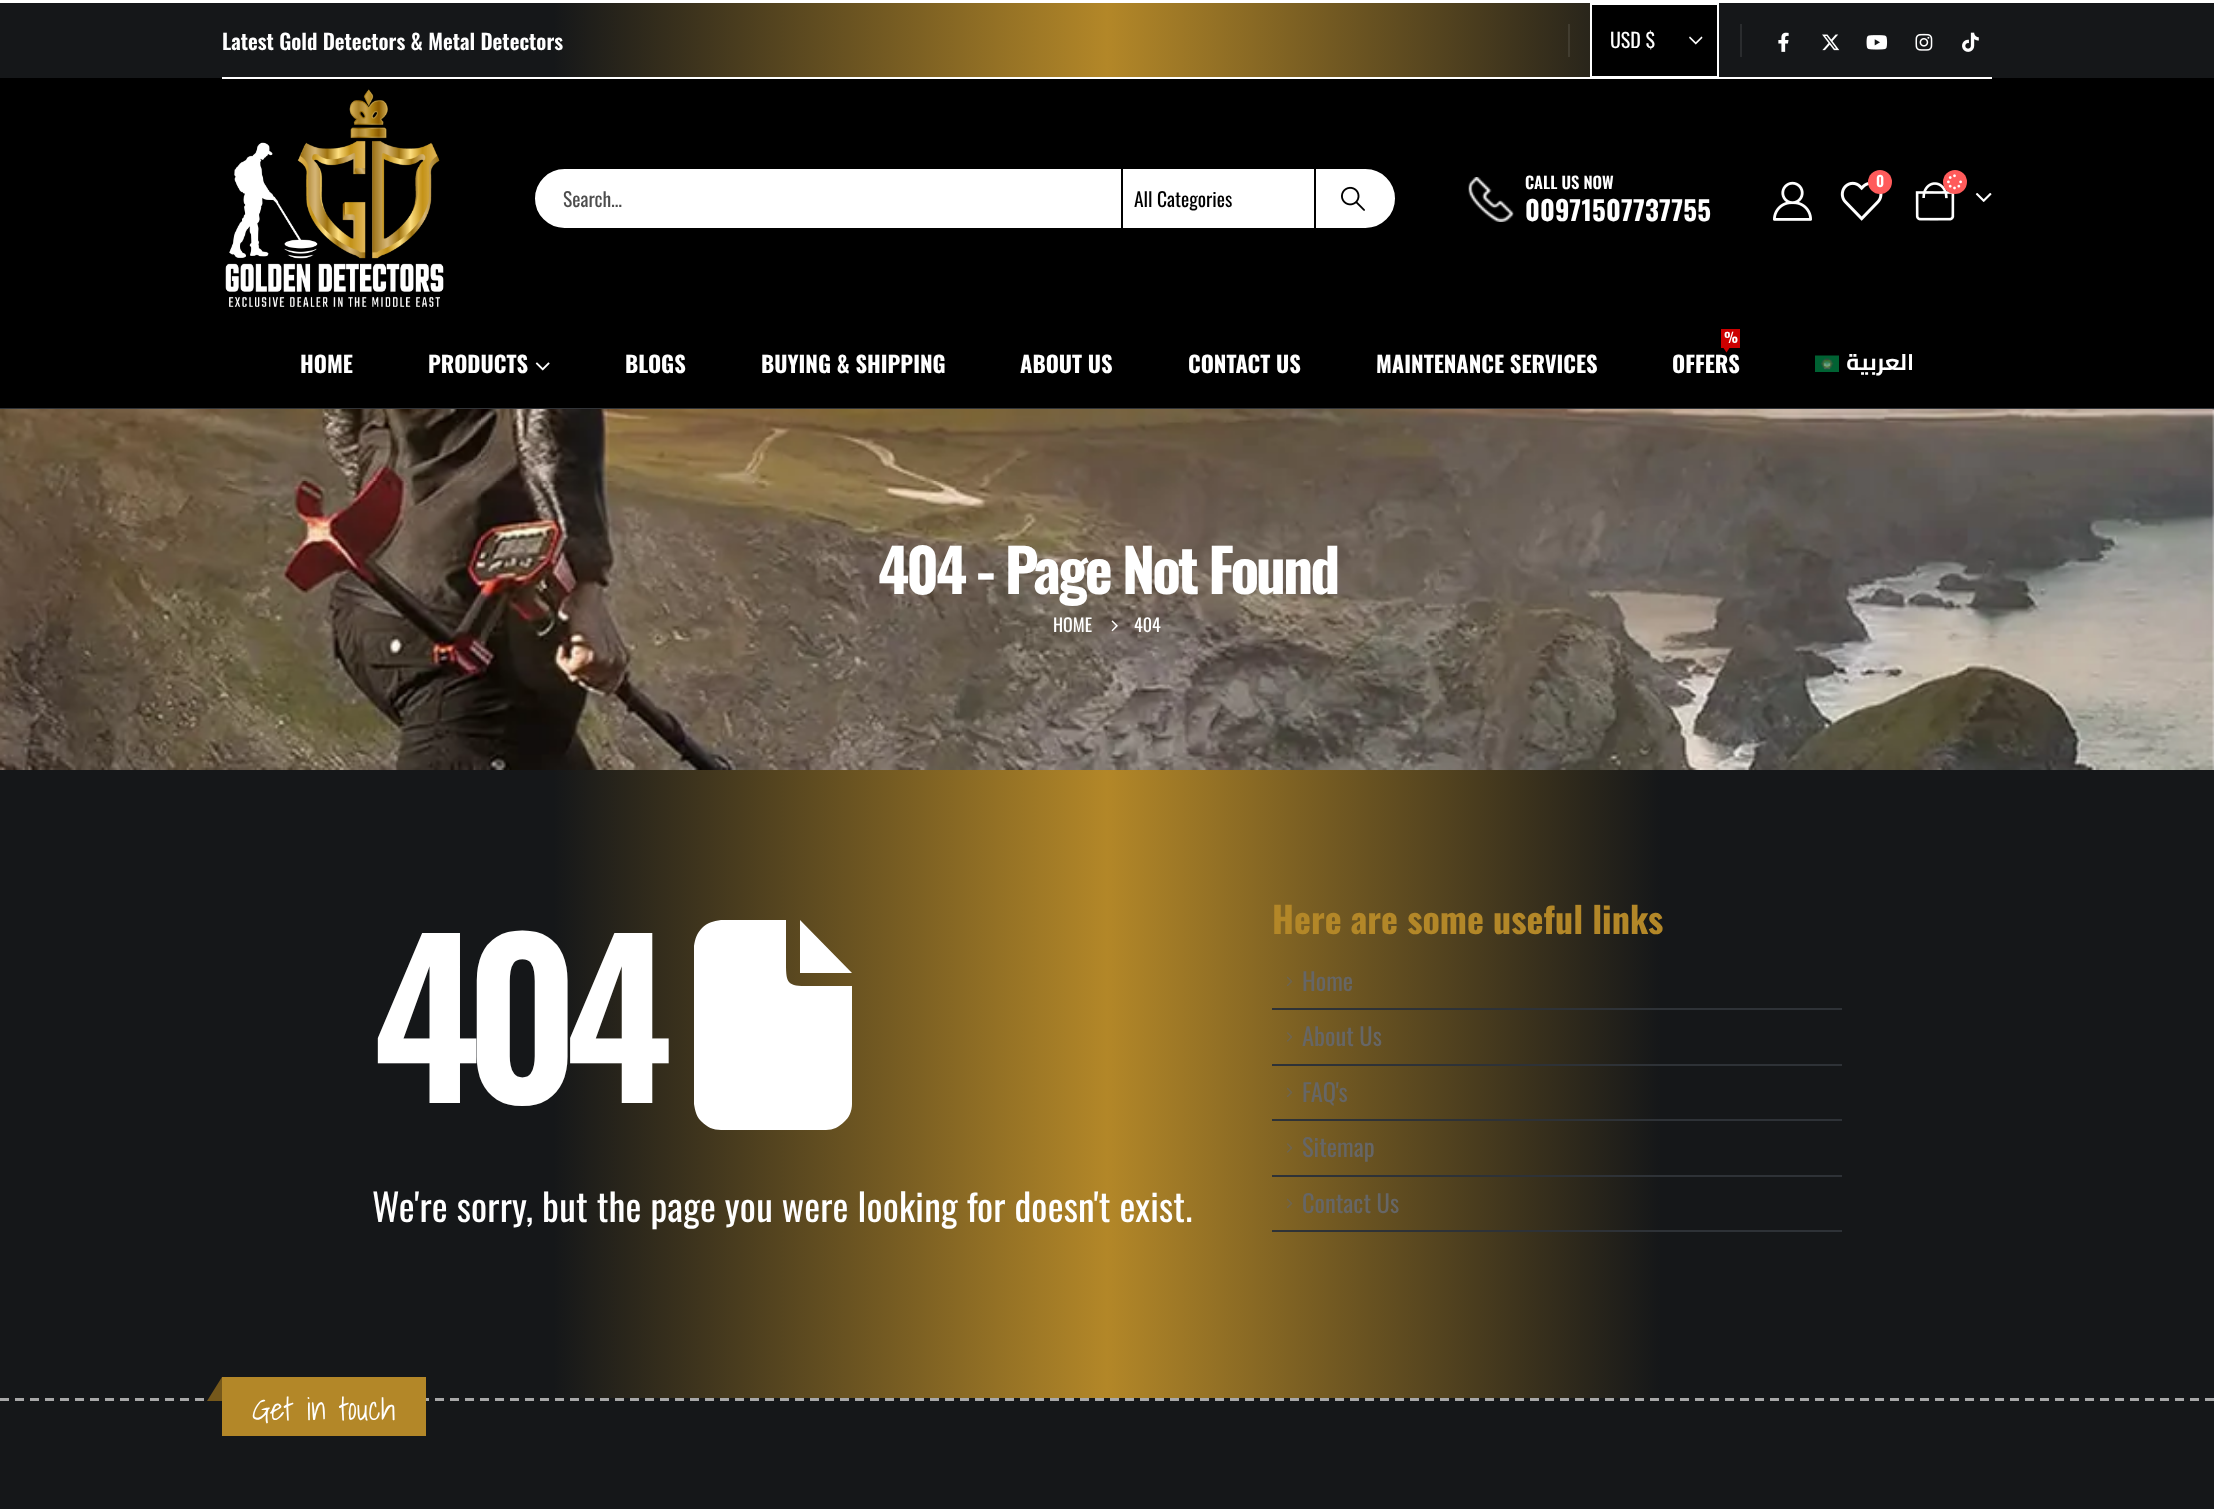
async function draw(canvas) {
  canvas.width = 2214
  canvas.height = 1509
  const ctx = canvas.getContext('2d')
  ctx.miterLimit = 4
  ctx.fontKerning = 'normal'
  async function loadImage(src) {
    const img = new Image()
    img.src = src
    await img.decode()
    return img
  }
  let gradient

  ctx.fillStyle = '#fff'
  ctx.fillRect(0, 0, 2214, 1509)
  ctx.fillStyle = '#000'
  ctx.fillRect(0, 78, 2214, 330)
  ctx.fillStyle = '#313438'
  ctx.fillRect(0, 408, 2214, 2)
  gradient = ctx.createLinearGradient(0, 41, 2214, 40)
  gradient.addColorStop(0, '#151719')
  gradient.addColorStop(0.25, '#151719')
  gradient.addColorStop(0.5, '#b38728')
  gradient.addColorStop(0.75, '#151719')
  gradient.addColorStop(1, '#151719')
  ctx.fillStyle = gradient
  ctx.fillRect(0, 3, 2214, 75)
  ctx.font = '600 21.25px Oswald'
  ctx.fillStyle = '#fff'
  ctx.fillText('Latest Gold Detectors & Metal Detectors', 222, 50)
  ctx.fillStyle = '#423d30'
  ctx.fillRect(1568, 24, 2, 33)
  ctx.fillStyle = '#000'
  ctx.fillRect(1592, 5, 125, 71)
  ctx.drawImage(await loadImage('image0.png'), 1689, 36, 14, 9)
  ctx.strokeStyle = '#fff'
  ctx.lineWidth = 2
  ctx.strokeRect(1591, 4, 127, 73)
  ctx.font = '20px Oswald'
  ctx.fillStyle = '#fff'
  ctx.fillText('USD $', 1610, 48)
  ctx.fillStyle = '#2a2c2e'
  ctx.fillRect(1740, 24, 2, 33)
  ctx.drawImage(await loadImage('image1.png'), 1778, 32, 11, 20)
  ctx.drawImage(await loadImage('image2.png'), 1822, 34, 18, 17)
  ctx.drawImage(await loadImage('image3.png'), 1866, 35, 22, 15)
  ctx.drawImage(await loadImage('image4.png'), 1915, 33, 18, 18)
  ctx.drawImage(await loadImage('image5.png'), 1962, 32, 17, 20)
  ctx.fillStyle = '#fff'
  ctx.fillRect(222, 77, 1770, 2)
  ctx.drawImage(await loadImage('image6.png'), 225, 89, 219, 218)
  ctx.beginPath()
  ctx.roundRect(534, 168, 862, 61, 30.5)
  ctx.fill()
  ctx.strokeStyle = '#000'
  ctx.stroke()
  ctx.font = '19.5px Oswald'
  ctx.fillStyle = '#4d4d4d'
  ctx.fillText('Search…', 563, 207)
  ctx.fillStyle = '#000'
  ctx.fillRect(1314, 168, 2, 60)
  ctx.fillRect(1121, 168, 2, 60)
  ctx.fillText('All Categories', 1134, 207)
  ctx.drawImage(await loadImage('image7.png'), 1341, 186, 24, 25)
  ctx.drawImage(await loadImage('image8.png'), 1468, 177, 46, 45)
  ctx.font = '600 16.5px Oswald'
  ctx.fillStyle = '#fff'
  ctx.fillText('CALL US NOW', 1525, 189)
  ctx.letterSpacing = '0.2px'
  ctx.font = 'bold 27px Oswald'
  ctx.fillText('00971507737755', 1525, 221)
  ctx.drawImage(await loadImage('image9.png'), 1773, 181, 39, 40)
  ctx.drawImage(await loadImage('image10.png'), 1840, 181, 43, 40)
  ctx.fillStyle = '#ff5b5b'
  ctx.beginPath()
  ctx.arc(1880, 182, 12, 0, 2 * Math.PI)
  ctx.fill()
  ctx.letterSpacing = '0px'
  ctx.font = '600 15px Oswald'
  ctx.fillStyle = '#fff'
  ctx.fillText('0', 1876, 187)
  ctx.drawImage(await loadImage('image12.png'), 1915, 182, 40, 39)
  ctx.fillStyle = '#ff5b5b'
  ctx.beginPath()
  ctx.arc(1955, 182, 12, 0, 2 * Math.PI)
  ctx.fill()
  ctx.drawImage(await loadImage('image11.png'), 1947, 174, 15, 16)
  ctx.drawImage(await loadImage('image13.png'), 1975, 193, 17, 9)
  ctx.font = 'bold 22.5px Oswald'
  ctx.fillStyle = '#fff'
  ctx.fillText('HOME', 300, 373)
  ctx.fillText('PRODUCTS', 428, 373)
  ctx.drawImage(await loadImage('image14.png'), 535, 362, 15, 9)
  ctx.fillText('BLOGS', 625, 373)
  ctx.fillText('BUYING & SHIPPING', 761, 373)
  ctx.fillText('ABOUT US', 1020, 373)
  ctx.fillText('CONTACT US', 1188, 373)
  ctx.fillText('MAINTENANCE SERVICES', 1376, 373)
  ctx.fillStyle = '#c00'
  ctx.fillRect(1721, 329, 19, 19)
  ctx.font = 'bold 14px Oswald'
  ctx.fillStyle = '#fff'
  ctx.fillText('%', 1724, 343)
  ctx.fillStyle = '#c00'
  ctx.beginPath()
  ctx.moveTo(1723.5, 348)
  ctx.lineTo(1729.5, 348)
  ctx.lineTo(1726.5, 352.5)
  ctx.closePath()
  ctx.fill()
  ctx.font = 'bold 22.5px Oswald'
  ctx.fillStyle = '#fff'
  ctx.fillText('OFFERS', 1672, 373)
  ctx.drawImage(await loadImage('image15.png'), 1815, 355, 24, 17)
  ctx.direction = 'rtl'
  ctx.font = 'bold 22.5px Cairo'
  ctx.fillText('العربية', 1914, 370)
  ctx.drawImage(await loadImage('image16.png'), 0, 409, 2214, 361)
  ctx.letterSpacing = '-3px'
  ctx.direction = 'ltr'
  ctx.font = 'bold 59.5px Oswald'
  ctx.fillText('404 - Page Not Found', 878, 594)
  ctx.letterSpacing = '0px'
  ctx.font = '18px Oswald'
  ctx.fillText('HOME', 1053, 632)
  ctx.drawImage(await loadImage('image17.png'), 1111, 620, 7, 12)
  ctx.fillText('404', 1134, 632)
  gradient = ctx.createLinearGradient(0, 1084, 2214, 1084)
  gradient.addColorStop(0, '#151719')
  gradient.addColorStop(0.25, '#151719')
  gradient.addColorStop(0.5, '#b38728')
  gradient.addColorStop(0.75, '#151719')
  gradient.addColorStop(1, '#151719')
  ctx.fillStyle = gradient
  ctx.fillRect(0, 770, 2214, 628)
  ctx.letterSpacing = '-15px'
  ctx.font = '600 210px Oswald'
  ctx.fillStyle = '#fff'
  ctx.fillText('404', 372, 1103)
  ctx.beginPath()
  ctx.moveTo(694, 946)
  ctx.bezierCurveTo(695, 939, 697, 933, 702, 928)
  ctx.bezierCurveTo(707, 923, 713, 921, 721, 920)
  ctx.lineTo(786, 920)
  ctx.lineTo(786, 964)
  ctx.bezierCurveTo(786, 984, 788, 986, 808, 986)
  ctx.lineTo(852, 986)
  ctx.lineTo(852, 1104)
  ctx.bezierCurveTo(852, 1111, 849, 1118, 844, 1122)
  ctx.bezierCurveTo(839, 1127, 833, 1130, 826, 1130)
  ctx.lineTo(721, 1130)
  ctx.bezierCurveTo(713, 1130, 707, 1127, 702, 1122)
  ctx.bezierCurveTo(697, 1118, 695, 1111, 694, 1104)
  ctx.closePath()
  ctx.moveTo(852, 973)
  ctx.lineTo(800, 973)
  ctx.lineTo(800, 920)
  ctx.closePath()
  ctx.fill()
  ctx.letterSpacing = '0.2px'
  ctx.font = '37.8px Oswald'
  ctx.fillText('We\'re sorry, but the page you were looking for doesn\'t exist.', 372, 1222)
  ctx.letterSpacing = '0px'
  ctx.font = 'bold 36px Oswald'
  ctx.fillStyle = '#b38728'
  ctx.fillText('Here are some useful links', 1272, 934)
  ctx.fillStyle = '#2e3237'
  ctx.fillRect(1272, 1008, 570, 2)
  ctx.drawImage(await loadImage('image18.png'), 1287, 976, 6, 10)
  ctx.font = '24.5px Oswald'
  ctx.fillStyle = '#666'
  ctx.fillText('Home', 1302, 991)
  ctx.fillStyle = '#2e3237'
  ctx.fillRect(1272, 1064, 570, 2)
  ctx.drawImage(await loadImage('image19.png'), 1287, 1032, 6, 10)
  ctx.fillStyle = '#666'
  ctx.fillText('About Us', 1302, 1046)
  ctx.fillStyle = '#2e3237'
  ctx.fillRect(1272, 1119, 570, 2)
  ctx.drawImage(await loadImage('image18.png'), 1287, 1087, 6, 10)
  ctx.fillStyle = '#666'
  ctx.fillText('FAQ\'s', 1302, 1102)
  ctx.fillStyle = '#2e3237'
  ctx.fillRect(1272, 1175, 570, 2)
  ctx.drawImage(await loadImage('image19.png'), 1287, 1143, 6, 10)
  ctx.fillStyle = '#666'
  ctx.fillText('Sitemap', 1302, 1157)
  ctx.fillStyle = '#2e3237'
  ctx.fillRect(1272, 1230, 570, 2)
  ctx.drawImage(await loadImage('image18.png'), 1287, 1198, 6, 10)
  ctx.fillStyle = '#666'
  ctx.fillText('Contact Us', 1302, 1213)
  ctx.fillStyle = '#151719'
  ctx.fillRect(0, 1398, 2214, 111)
  ctx.beginPath()
  ctx.moveTo(0, 1399.5)
  ctx.lineTo(2214, 1399.5)
  ctx.strokeStyle = '#a8a8a8'
  ctx.lineWidth = 3
  ctx.setLineDash([9, 6])
  ctx.stroke()
  ctx.fillStyle = '#b38728'
  ctx.fillRect(222, 1377, 204, 59)
  ctx.fillStyle = '#75581b'
  ctx.beginPath()
  ctx.moveTo(222, 1377)
  ctx.lineTo(222, 1401)
  ctx.lineTo(207, 1401)
  ctx.closePath()
  ctx.fill()
  ctx.font = '31px Shadows Into Light'
  ctx.fillStyle = '#fff'
  ctx.fillText('Get in touch', 252, 1420)
}

draw(document.querySelector('canvas'))
